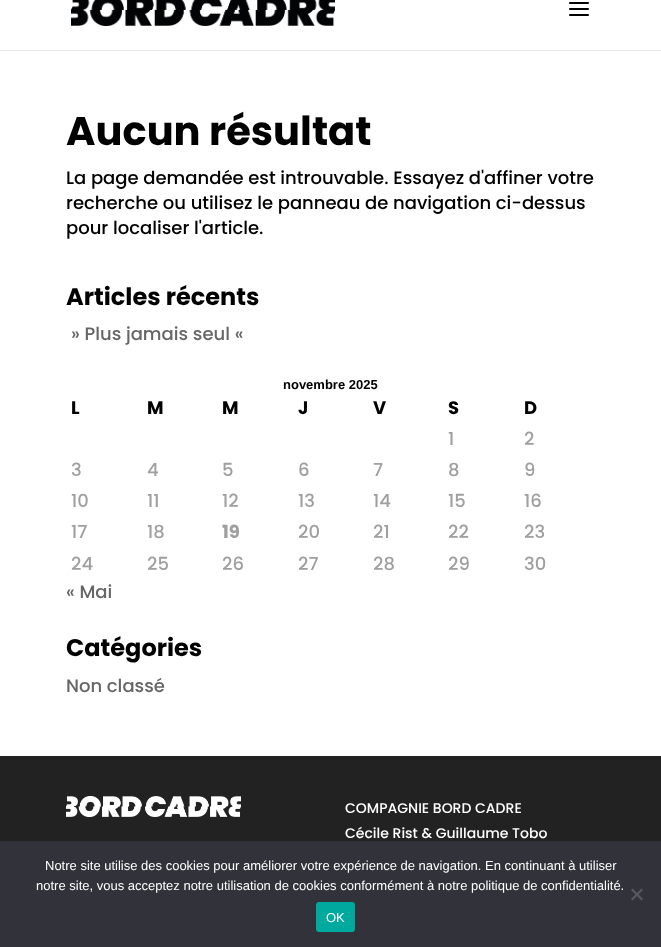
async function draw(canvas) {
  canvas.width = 661
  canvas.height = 947
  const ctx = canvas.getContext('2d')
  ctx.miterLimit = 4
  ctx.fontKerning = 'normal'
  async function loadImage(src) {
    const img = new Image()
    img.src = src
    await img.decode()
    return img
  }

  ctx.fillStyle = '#fff'
  ctx.fillRect(0, 0, 661, 947)
  ctx.fillStyle = '#e6e6e6'
  ctx.fillRect(0, 50, 661, 1)
  ctx.drawImage(await loadImage('image0.png'), 71, 0, 264, 26)
  ctx.drawImage(await loadImage('image1.png'), 569, 2, 20, 14)
  ctx.font = 'bold 40px Poppins'
  ctx.fillStyle = '#000'
  ctx.fillText('Aucun résultat', 66, 145)
  ctx.font = '500 18px Poppins'
  ctx.fillText('La page demandée est introuvable. Essayez d\'affiner votre', 66, 184)
  ctx.fillText('recherche ou utilisez le panneau de navigation ci-dessus', 66, 209)
  ctx.fillText('pour localiser l\'article.', 66, 234)
  ctx.font = 'bold 24px Poppins'
  ctx.fillText('Articles récents', 66, 305)
  ctx.font = '500 18px Poppins'
  ctx.fillStyle = '#666'
  ctx.fillText('» Plus jamais seul «', 71, 340)
  ctx.font = 'bold 13px Liberation Sans'
  ctx.fillStyle = '#000'
  ctx.fillText('novembre 2025', 283, 389)
  ctx.font = 'bold 18px Poppins'
  ctx.fillText('L', 71, 414)
  ctx.fillText('M', 147, 414)
  ctx.fillText('M', 222, 414)
  ctx.fillText('J', 298, 414)
  ctx.fillText('V', 373, 414)
  ctx.fillText('S', 448, 414)
  ctx.fillText('D', 524, 414)
  ctx.font = '500 18px Poppins'
  ctx.fillStyle = '#9f9f9f'
  ctx.fillText('1', 448, 445)
  ctx.fillText('2', 524, 445)
  ctx.fillText('3', 71, 476)
  ctx.fillText('4', 147, 476)
  ctx.fillText('5', 222, 476)
  ctx.fillText('6', 298, 476)
  ctx.fillText('7', 373, 476)
  ctx.fillText('8', 448, 476)
  ctx.fillText('9', 524, 476)
  ctx.fillText('10', 71, 507)
  ctx.fillText('11', 147, 507)
  ctx.fillText('12', 222, 507)
  ctx.fillText('13', 298, 507)
  ctx.fillText('14', 373, 507)
  ctx.fillText('15', 448, 507)
  ctx.fillText('16', 524, 507)
  ctx.fillText('17', 71, 538)
  ctx.fillText('18', 147, 538)
  ctx.font = 'bold 18px Poppins'
  ctx.fillText('19', 222, 538)
  ctx.font = '500 18px Poppins'
  ctx.fillText('20', 298, 538)
  ctx.fillText('21', 373, 538)
  ctx.fillText('22', 448, 538)
  ctx.fillText('23', 524, 538)
  ctx.fillText('24', 71, 570)
  ctx.fillText('25', 147, 570)
  ctx.fillText('26', 222, 570)
  ctx.fillText('27', 298, 570)
  ctx.fillText('28', 373, 570)
  ctx.fillText('29', 448, 570)
  ctx.fillText('30', 524, 570)
  ctx.fillStyle = '#666'
  ctx.fillText('« Mai', 66, 598)
  ctx.font = 'bold 24px Poppins'
  ctx.fillStyle = '#000'
  ctx.fillText('Catégories', 66, 656)
  ctx.font = '500 18px Poppins'
  ctx.fillStyle = '#666'
  ctx.fillText('Non classé', 66, 692)
  ctx.fillStyle = '#222'
  ctx.fillRect(0, 756, 661, 85)
  ctx.drawImage(await loadImage('image2.png'), 66, 796, 175, 21)
  ctx.font = '500 14px Poppins'
  ctx.fillStyle = '#fff'
  ctx.fillText('COMPAGNIE BORD CADRE', 345, 813)
  ctx.fillText('Cécile Rist & Guillaume Tobo', 345, 838)
  ctx.fillStyle = '#32323a'
  ctx.fillRect(0, 841, 661, 106)
  ctx.font = '13px Liberation Sans'
  ctx.fillStyle = '#fff'
  ctx.fillText('Notre site utilise des cookies pour améliorer votre expérience de navigation. En continuant à utiliser', 45, 870)
  ctx.fillText('notre site, vous acceptez notre utilisation de cookies conformément à notre politique de confidentialité.', 36, 890)
  ctx.fillStyle = '#59595d'
  ctx.beginPath()
  ctx.moveTo(641.5, 888.5)
  ctx.lineTo(643, 890)
  ctx.lineTo(632.5, 900.5)
  ctx.lineTo(631, 899)
  ctx.closePath()
  ctx.fill()
  ctx.beginPath()
  ctx.moveTo(631, 890)
  ctx.lineTo(632.5, 888.5)
  ctx.lineTo(643, 899)
  ctx.lineTo(641.5, 900.5)
  ctx.closePath()
  ctx.fill()
  ctx.fillStyle = '#00a99d'
  ctx.beginPath()
  ctx.roundRect(316, 902, 39, 30, 3)
  ctx.fill()
  ctx.fillStyle = '#fff'
  ctx.fillText('OK', 326, 922)
}

draw(document.querySelector('canvas'))
